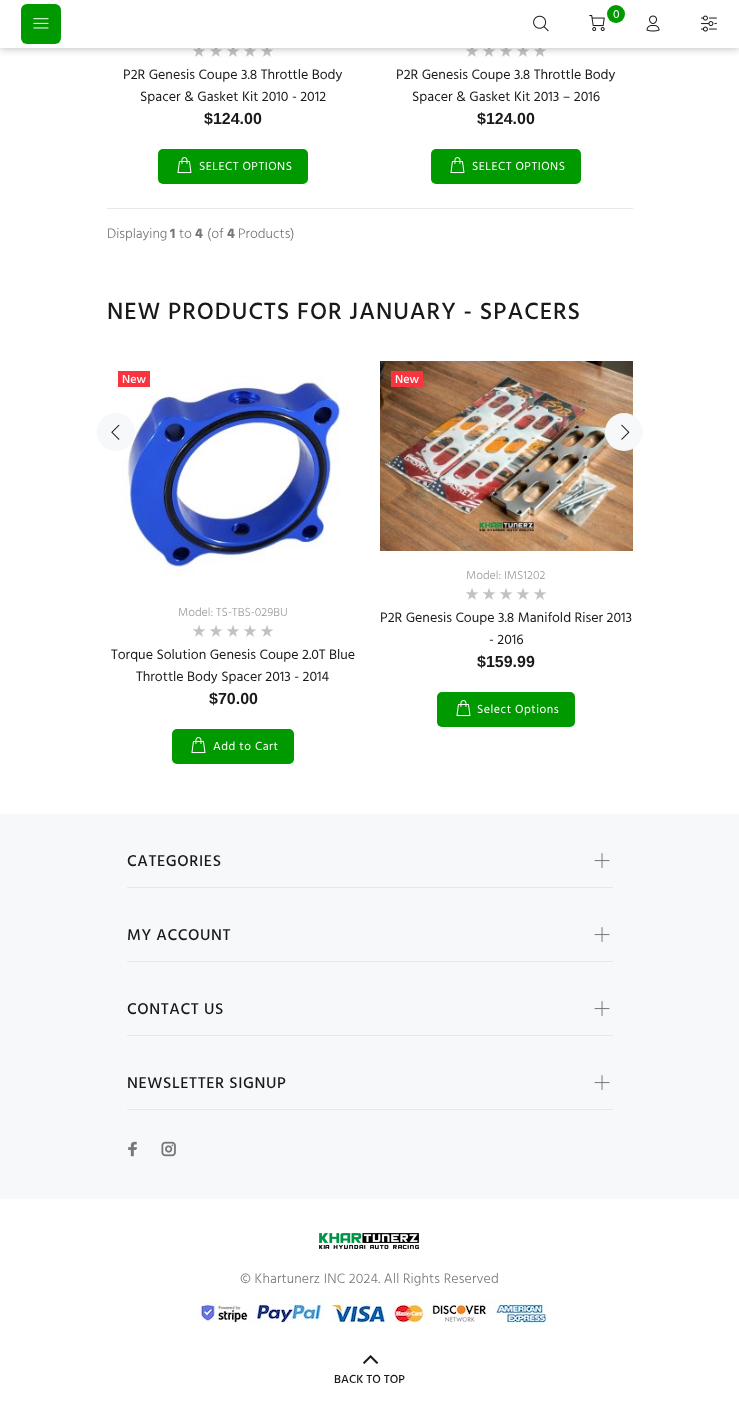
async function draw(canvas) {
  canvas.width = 739
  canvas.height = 1424
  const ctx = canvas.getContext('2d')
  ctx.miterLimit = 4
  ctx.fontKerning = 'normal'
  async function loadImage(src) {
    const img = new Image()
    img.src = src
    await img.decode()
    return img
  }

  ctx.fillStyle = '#fff'
  ctx.fillRect(0, 0, 739, 1424)
  ctx.drawImage(await loadImage('image5.png'), 193, 48, 81, 9)
  ctx.drawImage(await loadImage('image5.png'), 466, 48, 81, 9)
  ctx.fillStyle = '#0000004d'
  ctx.filter = 'blur(4px)'
  ctx.beginPath()
  ctx.rect(0, 0, 739, 48)
  ctx.fill()
  ctx.filter = 'none'
  ctx.fillStyle = '#fff'
  ctx.fillRect(0, 0, 739, 48)
  ctx.fillStyle = '#090'
  ctx.beginPath()
  ctx.roundRect(21, 4, 40, 40, 6)
  ctx.fill()
  ctx.drawImage(await loadImage('image0.png'), 33, 18, 16, 11)
  ctx.drawImage(await loadImage('image1.png'), 533, 15, 16, 17)
  ctx.drawImage(await loadImage('image2.png'), 589, 15, 16, 16)
  ctx.beginPath()
  ctx.arc(616, 14, 9, 0, 2 * Math.PI)
  ctx.fill()
  ctx.font = '12px Hind'
  ctx.fillStyle = '#fff'
  ctx.fillText('0', 613, 18)
  ctx.drawImage(await loadImage('image3.png'), 646, 15, 14, 17)
  ctx.drawImage(await loadImage('image4.png'), 700, 15, 17, 17)
  ctx.font = '14px Hind'
  ctx.fillStyle = '#191919'
  ctx.fillText('P2R Genesis Coupe 3.8 Throttle Body', 123, 79)
  ctx.fillText('Spacer & Gasket Kit 2010 - 2012', 140, 101)
  ctx.font = 'bold 16px Liberation Sans'
  ctx.fillText('$124.00', 204, 124)
  ctx.fillStyle = '#090'
  ctx.beginPath()
  ctx.roundRect(158, 149, 150, 35, 5)
  ctx.fill()
  ctx.drawImage(await loadImage('image6.png'), 177, 157, 15, 17)
  ctx.letterSpacing = '0.5px'
  ctx.font = '12px Hind'
  ctx.fillStyle = '#fff'
  ctx.fillText('SELECT OPTIONS', 199, 170)
  ctx.letterSpacing = '0px'
  ctx.font = '14px Hind'
  ctx.fillStyle = '#191919'
  ctx.fillText('P2R Genesis Coupe 3.8 Throttle Body', 396, 79)
  ctx.fillText('Spacer & Gasket Kit 2013 – 2016', 412, 101)
  ctx.font = 'bold 16px Liberation Sans'
  ctx.fillText('$124.00', 477, 124)
  ctx.fillStyle = '#090'
  ctx.beginPath()
  ctx.roundRect(431, 149, 150, 35, 5)
  ctx.fill()
  ctx.drawImage(await loadImage('image6.png'), 450, 157, 15, 17)
  ctx.letterSpacing = '0.5px'
  ctx.font = '12px Hind'
  ctx.fillStyle = '#fff'
  ctx.fillText('SELECT OPTIONS', 472, 170)
  ctx.fillStyle = '#e9e7e7'
  ctx.fillRect(107, 208, 526, 1)
  ctx.letterSpacing = '0px'
  ctx.font = '300 14px Hind'
  ctx.fillStyle = '#777'
  ctx.fillText('Displaying', 107, 238)
  ctx.font = 'bold 14px Hind'
  ctx.fillText('1', 170, 238)
  ctx.font = '300 14px Hind'
  ctx.fillText('to', 179, 238)
  ctx.font = 'bold 14px Hind'
  ctx.fillText('4', 195, 238)
  ctx.font = '300 14px Hind'
  ctx.fillText('(of', 207, 238)
  ctx.font = 'bold 14px Hind'
  ctx.fillText('4', 227, 238)
  ctx.font = '300 14px Hind'
  ctx.fillText('Products)', 238, 238)
  ctx.letterSpacing = '0.95px'
  ctx.font = '500 24px Hind'
  ctx.fillStyle = '#191919'
  ctx.fillText('NEW PRODUCTS FOR JANUARY - SPACERS', 107, 319)
  ctx.drawImage(await loadImage('image7.png'), 122, 376, 225, 199)
  ctx.fillStyle = '#f8353e'
  ctx.fillRect(118, 371, 32, 16)
  ctx.letterSpacing = '0px'
  ctx.font = '500 12px Hind'
  ctx.fillStyle = '#fff'
  ctx.fillText('New', 122, 383)
  ctx.font = '300 12px Hind'
  ctx.fillStyle = '#999'
  ctx.fillText('Model: TS-TBS-029BU', 178, 616)
  ctx.drawImage(await loadImage('image8.png'), 193, 625, 81, 12)
  ctx.font = '14px Hind'
  ctx.fillStyle = '#191919'
  ctx.fillText('Torque Solution Genesis Coupe 2.0T Blue', 111, 659)
  ctx.fillText('Throttle Body Spacer 2013 - 2014', 136, 681)
  ctx.font = 'bold 16px Liberation Sans'
  ctx.fillText('$70.00', 209, 704)
  ctx.fillStyle = '#090'
  ctx.beginPath()
  ctx.roundRect(172, 729, 122, 35, 5)
  ctx.fill()
  ctx.drawImage(await loadImage('image6.png'), 191, 737, 15, 17)
  ctx.letterSpacing = '0.5px'
  ctx.font = '12px Hind'
  ctx.fillStyle = '#fff'
  ctx.fillText('Add to Cart', 213, 750)
  ctx.drawImage(await loadImage('image9.png'), 380, 361, 253, 190)
  ctx.fillStyle = '#f8353e'
  ctx.fillRect(391, 371, 32, 16)
  ctx.letterSpacing = '0px'
  ctx.font = '500 12px Hind'
  ctx.fillStyle = '#fff'
  ctx.fillText('New', 395, 383)
  ctx.font = '300 12px Hind'
  ctx.fillStyle = '#999'
  ctx.fillText('Model: IMS1202', 466, 579)
  ctx.drawImage(await loadImage('image8.png'), 466, 588, 81, 12)
  ctx.font = '14px Hind'
  ctx.fillStyle = '#191919'
  ctx.fillText('P2R Genesis Coupe 3.8 Manifold Riser 2013', 380, 622)
  ctx.fillText('- 2016', 489, 644)
  ctx.font = 'bold 16px Liberation Sans'
  ctx.fillText('$159.99', 477, 667)
  ctx.fillStyle = '#090'
  ctx.beginPath()
  ctx.roundRect(437, 692, 138, 35, 5)
  ctx.fill()
  ctx.drawImage(await loadImage('image6.png'), 456, 700, 15, 17)
  ctx.letterSpacing = '0.5px'
  ctx.font = '12px Hind'
  ctx.fillStyle = '#fff'
  ctx.fillText('Select Options', 477, 713)
  ctx.fillStyle = '#f7f8fa'
  ctx.beginPath()
  ctx.arc(116, 432, 19, 0, 2 * Math.PI)
  ctx.fill()
  ctx.drawImage(await loadImage('image10.png'), 111, 424, 9, 16)
  ctx.beginPath()
  ctx.arc(624, 432, 19, 0, 2 * Math.PI)
  ctx.fill()
  ctx.drawImage(await loadImage('image11.png'), 621, 424, 9, 16)
  ctx.fillRect(0, 814, 739, 385)
  ctx.fillStyle = '#e9e7e7'
  ctx.fillRect(127, 887, 486, 1)
  ctx.letterSpacing = '0.6px'
  ctx.font = '500 16px Hind'
  ctx.fillStyle = '#191919'
  ctx.fillText('CATEGORIES', 127, 866)
  ctx.drawImage(await loadImage('image12.png'), 594, 853, 16, 15)
  ctx.fillStyle = '#e9e7e7'
  ctx.fillRect(127, 961, 486, 1)
  ctx.fillStyle = '#191919'
  ctx.fillText('MY ACCOUNT', 127, 940)
  ctx.drawImage(await loadImage('image12.png'), 594, 927, 16, 15)
  ctx.fillStyle = '#e9e7e7'
  ctx.fillRect(127, 1035, 486, 1)
  ctx.fillStyle = '#191919'
  ctx.fillText('CONTACT US', 127, 1014)
  ctx.drawImage(await loadImage('image12.png'), 594, 1001, 16, 15)
  ctx.fillStyle = '#e9e7e7'
  ctx.fillRect(127, 1109, 486, 1)
  ctx.fillStyle = '#191919'
  ctx.fillText('NEWSLETTER SIGNUP', 127, 1088)
  ctx.drawImage(await loadImage('image12.png'), 594, 1075, 16, 15)
  ctx.drawImage(await loadImage('image13.png'), 128, 1141, 10, 16)
  ctx.drawImage(await loadImage('image14.png'), 161, 1141, 15, 16)
  ctx.drawImage(await loadImage('image15.png'), 319, 1233, 100, 16)
  ctx.letterSpacing = '0.15px'
  ctx.font = '300 14px Hind'
  ctx.fillStyle = '#777'
  ctx.fillText('© Khartunerz INC 2024. All Rights Reserved', 240, 1283)
  ctx.drawImage(await loadImage('image16.png'), 196, 1291, 352, 33)
  ctx.drawImage(await loadImage('image17.png'), 363, 1355, 16, 9)
  ctx.letterSpacing = '0px'
  ctx.font = '500 12px Hind'
  ctx.fillStyle = '#191919'
  ctx.fillText('BACK TO TOP', 334, 1383)
}

draw(document.querySelector('canvas'))
